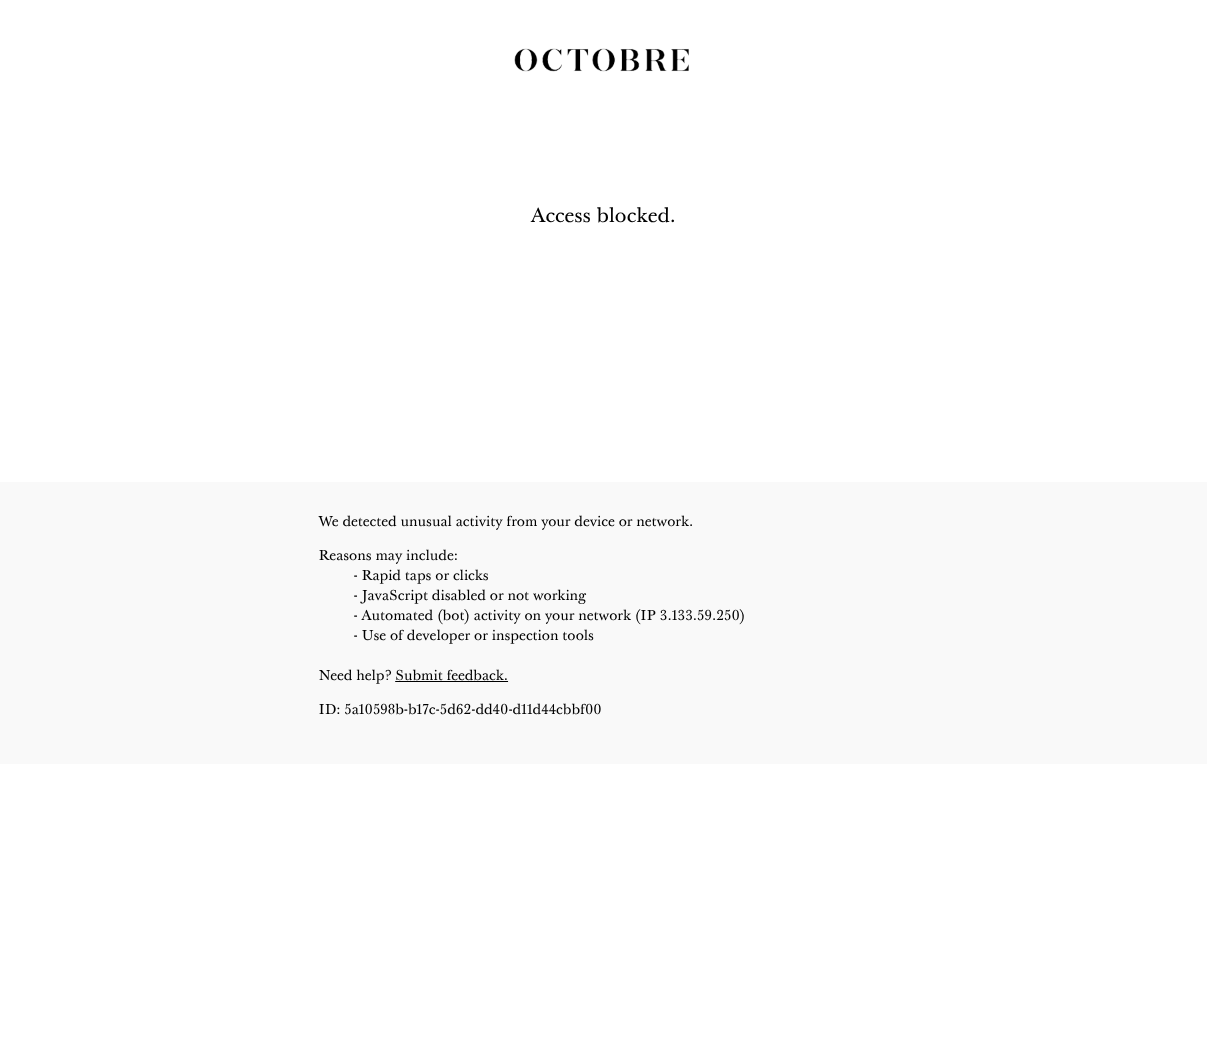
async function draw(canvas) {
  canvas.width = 1207
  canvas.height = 1039
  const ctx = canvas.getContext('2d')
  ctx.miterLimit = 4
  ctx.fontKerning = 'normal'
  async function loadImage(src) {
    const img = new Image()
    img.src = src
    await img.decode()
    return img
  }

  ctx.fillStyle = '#fff'
  ctx.fillRect(0, 0, 1207, 1039)
  ctx.drawImage(await loadImage('image0.png'), 0, 48, 1207, 716)
}

draw(document.querySelector('canvas'))
